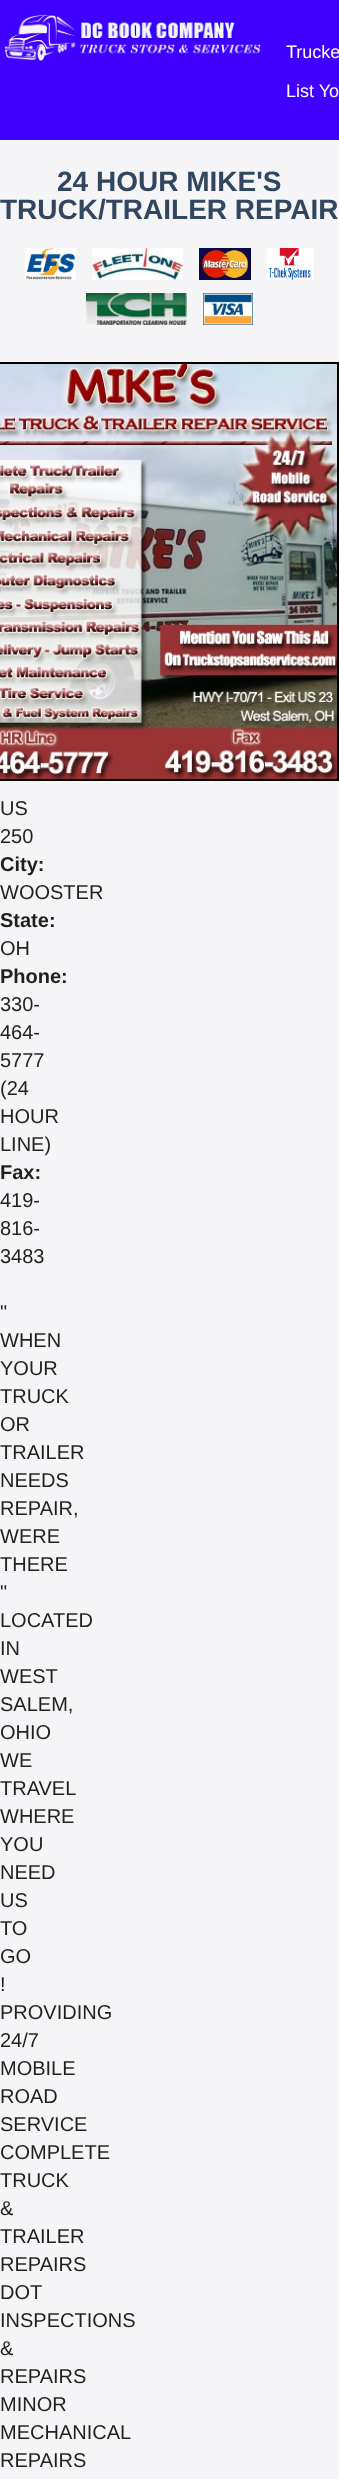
async function draw(canvas) {
  canvas.width = 339
  canvas.height = 2479
  const ctx = canvas.getContext('2d')
  ctx.miterLimit = 4
  ctx.fontKerning = 'normal'
  async function loadImage(src) {
    const img = new Image()
    img.src = src
    await img.decode()
    return img
  }

  ctx.fillStyle = '#f5f5f7'
  ctx.fillRect(0, 0, 339, 2479)
  ctx.fillStyle = '#4000ff'
  ctx.fillRect(0, 0, 339, 140)
  ctx.drawImage(await loadImage('image0.png'), 4, 15, 257, 47)
  ctx.font = '18px Liberation Sans'
  ctx.fillStyle = '#fff'
  ctx.fillText('Trucke', 286, 58)
  ctx.fillText('List Yo', 286, 97)
  ctx.font = 'bold 28px Liberation Sans'
  ctx.fillStyle = '#31475f'
  ctx.fillText('24 HOUR MIKE\'S', 57, 191)
  ctx.fillText('TRUCK/TRAILER REPAIR', 0, 219)
  ctx.drawImage(await loadImage('image1.png'), 25, 248, 51, 32)
  ctx.drawImage(await loadImage('image2.png'), 92, 248, 91, 32)
  ctx.drawImage(await loadImage('image3.png'), 199, 248, 52, 32)
  ctx.drawImage(await loadImage('image4.png'), 267, 248, 47, 32)
  ctx.drawImage(await loadImage('image5.png'), 86, 293, 101, 32)
  ctx.drawImage(await loadImage('image6.png'), 203, 293, 50, 32)
  ctx.strokeStyle = '#000'
  ctx.lineWidth = 2
  ctx.strokeRect(-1, 363, 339, 417)
  ctx.drawImage(await loadImage('image7.png'), 0, 364, 337, 415)
  ctx.font = '20px Liberation Sans'
  ctx.fillStyle = '#231f20'
  ctx.fillText('US', 0, 815)
  ctx.fillText('250', 0, 843)
  ctx.font = 'bold 20px Liberation Sans'
  ctx.fillText('City:', 0, 871)
  ctx.font = '20px Liberation Sans'
  ctx.fillText('WOOSTER', 0, 899)
  ctx.font = 'bold 20px Liberation Sans'
  ctx.fillText('State:', 0, 927)
  ctx.font = '20px Liberation Sans'
  ctx.fillText('OH', 0, 955)
  ctx.font = 'bold 20px Liberation Sans'
  ctx.fillText('Phone:', 0, 983)
  ctx.font = '20px Liberation Sans'
  ctx.fillText('330-', 0, 1011)
  ctx.fillText('464-', 0, 1039)
  ctx.fillText('5777', 0, 1067)
  ctx.fillText('(24', 0, 1095)
  ctx.fillText('HOUR', 0, 1123)
  ctx.fillText('LINE)', 0, 1151)
  ctx.font = 'bold 20px Liberation Sans'
  ctx.fillText('Fax:', 0, 1179)
  ctx.font = '20px Liberation Sans'
  ctx.fillText('419-', 0, 1207)
  ctx.fillText('816-', 0, 1235)
  ctx.fillText('3483', 0, 1263)
  ctx.fillText('"', 0, 1319)
  ctx.fillText('WHEN', 0, 1347)
  ctx.fillText('YOUR', 0, 1375)
  ctx.fillText('TRUCK', 0, 1403)
  ctx.fillText('OR', 0, 1431)
  ctx.fillText('TRAILER', 0, 1459)
  ctx.fillText('NEEDS', 0, 1487)
  ctx.fillText('REPAIR,', 0, 1515)
  ctx.fillText('WERE', 0, 1543)
  ctx.fillText('THERE', 0, 1571)
  ctx.fillText('"', 0, 1599)
  ctx.fillText('LOCATED', 0, 1627)
  ctx.fillText('IN', 0, 1655)
  ctx.fillText('WEST', 0, 1683)
  ctx.fillText('SALEM,', 0, 1711)
  ctx.fillText('OHIO', 0, 1739)
  ctx.fillText('WE', 0, 1767)
  ctx.fillText('TRAVEL', 0, 1795)
  ctx.fillText('WHERE', 0, 1823)
  ctx.fillText('YOU', 0, 1851)
  ctx.fillText('NEED', 0, 1879)
  ctx.fillText('US', 0, 1907)
  ctx.fillText('TO', 0, 1935)
  ctx.fillText('GO', 0, 1963)
  ctx.fillText('!', 0, 1991)
  ctx.fillText('PROVIDING', 0, 2019)
  ctx.fillText('24/7', 0, 2047)
  ctx.fillText('MOBILE', 0, 2075)
  ctx.fillText('ROAD', 0, 2103)
  ctx.fillText('SERVICE', 0, 2131)
  ctx.fillText('COMPLETE', 0, 2159)
  ctx.fillText('TRUCK', 0, 2187)
  ctx.fillText('&', 0, 2215)
  ctx.fillText('TRAILER', 0, 2243)
  ctx.fillText('REPAIRS', 0, 2271)
  ctx.fillText('DOT', 0, 2299)
  ctx.fillText('INSPECTIONS', 0, 2327)
  ctx.fillText('&', 0, 2355)
  ctx.fillText('REPAIRS', 0, 2383)
  ctx.fillText('MINOR', 0, 2411)
  ctx.fillText('MECHANICAL', 0, 2439)
  ctx.fillText('REPAIRS', 0, 2467)
}

draw(document.querySelector('canvas'))
